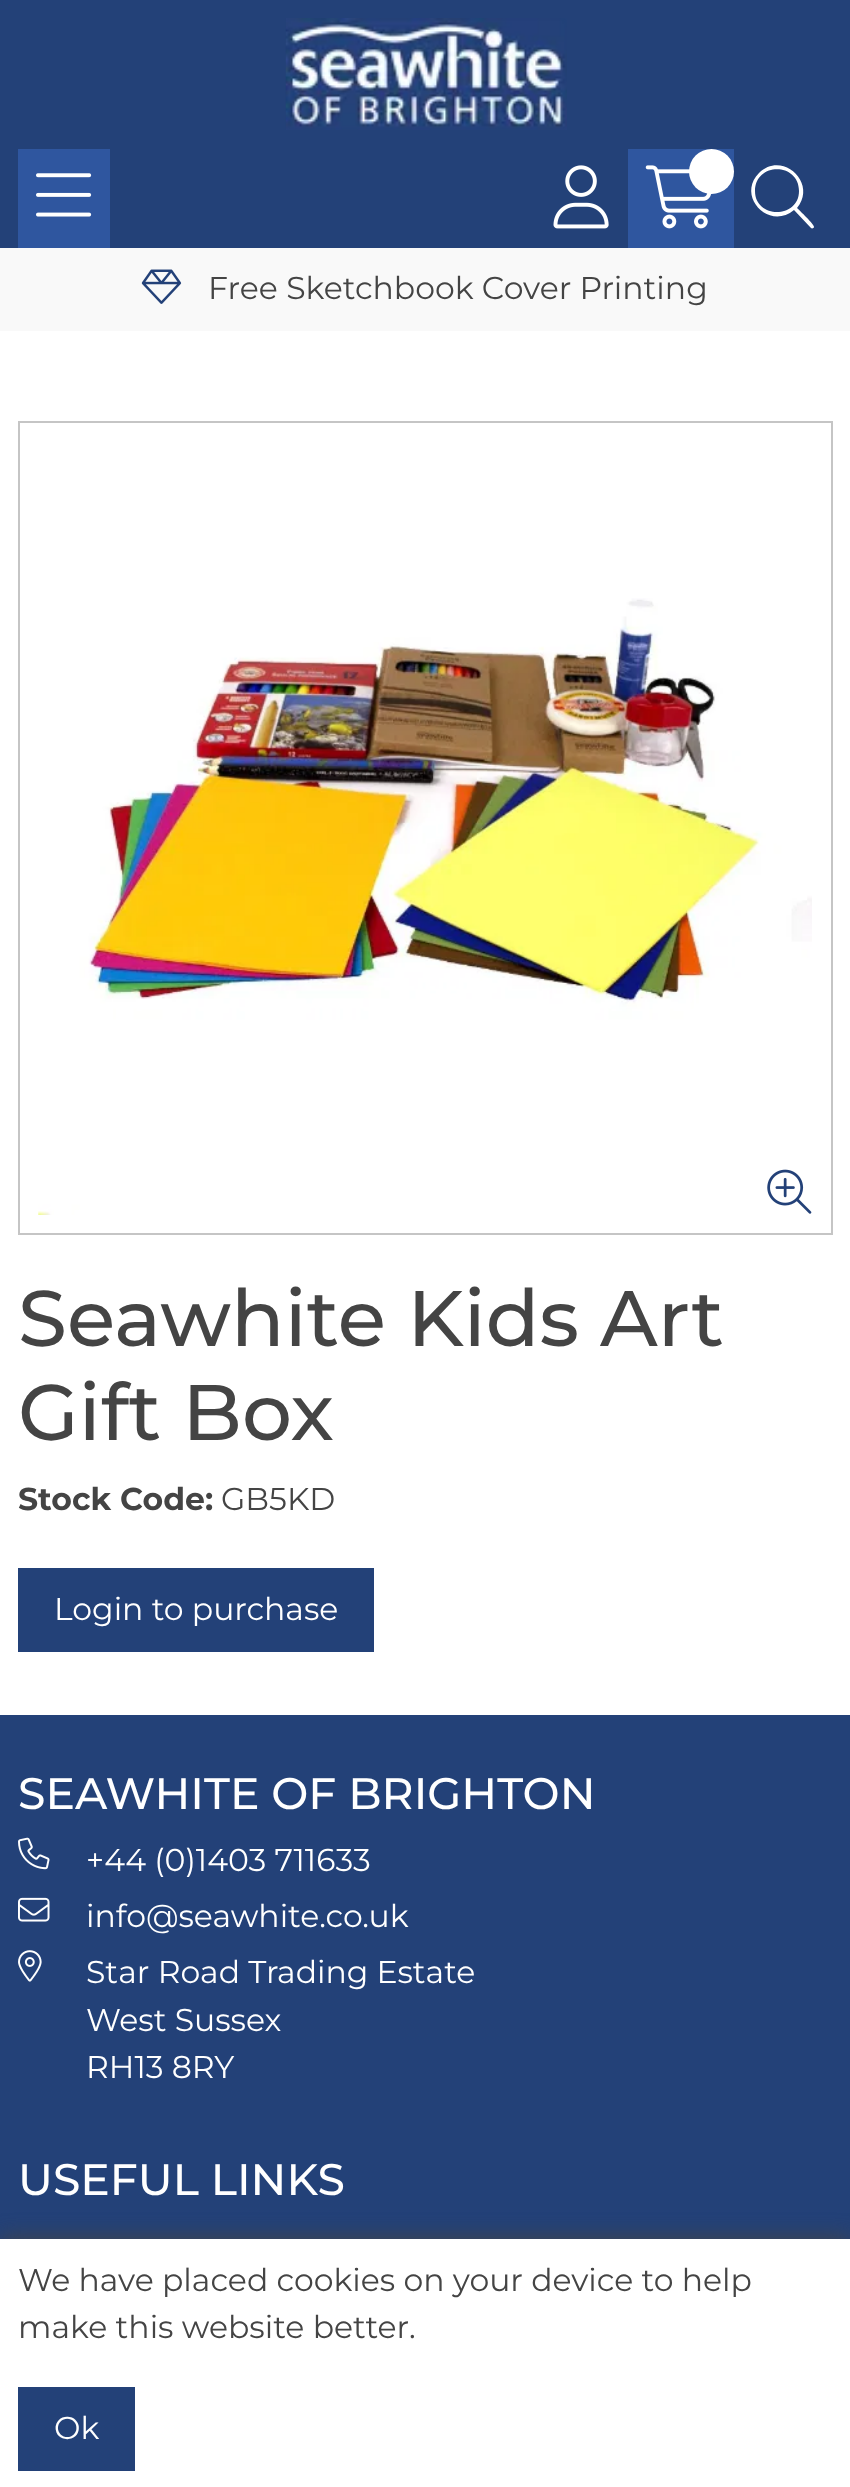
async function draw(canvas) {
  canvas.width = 850
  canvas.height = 2487
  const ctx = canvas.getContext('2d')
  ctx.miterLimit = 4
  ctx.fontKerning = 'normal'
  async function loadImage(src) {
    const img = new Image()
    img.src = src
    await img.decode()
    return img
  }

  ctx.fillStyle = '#fff'
  ctx.fillRect(0, 0, 850, 2487)
  ctx.fillStyle = '#234178'
  ctx.fillRect(0, 0, 850, 248)
  ctx.drawImage(await loadImage('image0.png'), 285, 18, 282, 112)
  ctx.fillStyle = '#2f569f'
  ctx.fillRect(18, 149, 92, 99)
  ctx.drawImage(await loadImage('image1.png'), 36, 173, 56, 44)
  ctx.drawImage(await loadImage('image2.png'), 553, 165, 56, 64)
  ctx.fillRect(628, 149, 106, 99)
  ctx.drawImage(await loadImage('image3.png'), 645, 165, 66, 64)
  ctx.fillStyle = '#fff'
  ctx.beginPath()
  ctx.arc(711.5, 171.5, 22.5, 0, 2 * Math.PI)
  ctx.fill()
  ctx.beginPath()
  ctx.moveTo(799, 191)
  ctx.bezierCurveTo(799, 162, 755, 162, 755, 191)
  ctx.bezierCurveTo(755, 219, 799, 219, 799, 191)
  ctx.closePath()
  ctx.moveTo(794, 210)
  ctx.bezierCurveTo(769, 231, 736, 196, 759, 173)
  ctx.bezierCurveTo(782, 150, 818, 183, 797, 208)
  ctx.bezierCurveTo(799, 210, 815, 225, 814, 227)
  ctx.bezierCurveTo(814, 228, 812, 229, 811, 228)
  ctx.closePath()
  ctx.fill()
  ctx.fillStyle = '#f9f9f9'
  ctx.fillRect(0, 248, 850, 83)
  ctx.drawImage(await loadImage('image4.png'), 141, 269, 41, 35)
  ctx.font = '100 31.5px Montserrat'
  ctx.fillStyle = '#444'
  ctx.fillText('Free Sketchbook Cover Printing', 208, 299)
  ctx.strokeStyle = '#c5c5c5'
  ctx.lineWidth = 2
  ctx.strokeRect(19, 422, 813, 812)
  ctx.drawImage(await loadImage('image5.png'), 38, 598, 774, 617)
  ctx.drawImage(await loadImage('image6.png'), 767, 1169, 45, 45)
  ctx.font = '100 78.75px "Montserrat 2"'
  ctx.fillText('Seawhite Kids Art', 18, 1346)
  ctx.fillText('Gift Box', 18, 1440)
  ctx.font = '100 31.5px "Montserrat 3"'
  ctx.fillText('Stock Code:', 18, 1510)
  ctx.font = '100 31.5px Montserrat'
  ctx.fillText('GB5KD', 221, 1510)
  ctx.fillStyle = '#234178'
  ctx.fillRect(18, 1568, 356, 84)
  ctx.fillStyle = '#fff'
  ctx.fillText('Login to purchase', 54, 1620)
  ctx.fillStyle = '#234178'
  ctx.fillRect(0, 1715, 850, 524)
  ctx.font = '100 44.1px "Montserrat 2"'
  ctx.fillStyle = '#fff'
  ctx.fillText('SEAWHITE OF BRIGHTON', 18, 1809)
  ctx.drawImage(await loadImage('image7.png'), 18, 1837, 32, 33)
  ctx.font = '100 31.5px Montserrat'
  ctx.fillText('+44 (0)1403 711633', 86, 1871)
  ctx.drawImage(await loadImage('image8.png'), 18, 1897, 32, 25)
  ctx.fillText('info@seawhite.co.uk', 86, 1927)
  ctx.drawImage(await loadImage('image9.png'), 18, 1950, 24, 32)
  ctx.fillText('Star Road Trading Estate', 86, 1983)
  ctx.fillText('West Sussex', 86, 2031)
  ctx.fillText('RH13 8RY', 86, 2078)
  ctx.font = '100 44.1px "Montserrat 2"'
  ctx.fillText('USEFUL LINKS', 18, 2195)
  ctx.fillStyle = '#444'
  ctx.filter = 'blur(11px)'
  ctx.beginPath()
  ctx.rect(0, 2239, 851, 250)
  ctx.fill()
  ctx.filter = 'none'
  ctx.fillStyle = '#fff'
  ctx.fillRect(0, 2239, 850, 248)
  ctx.font = '100 31.5px Montserrat'
  ctx.fillStyle = '#444'
  ctx.fillText('We have placed cookies on your device to help', 18, 2291)
  ctx.fillText('make this website better.', 18, 2338)
  ctx.fillStyle = '#234178'
  ctx.fillRect(18, 2387, 117, 84)
  ctx.fillStyle = '#fff'
  ctx.fillText('Ok', 54, 2439)
}

draw(document.querySelector('canvas'))
